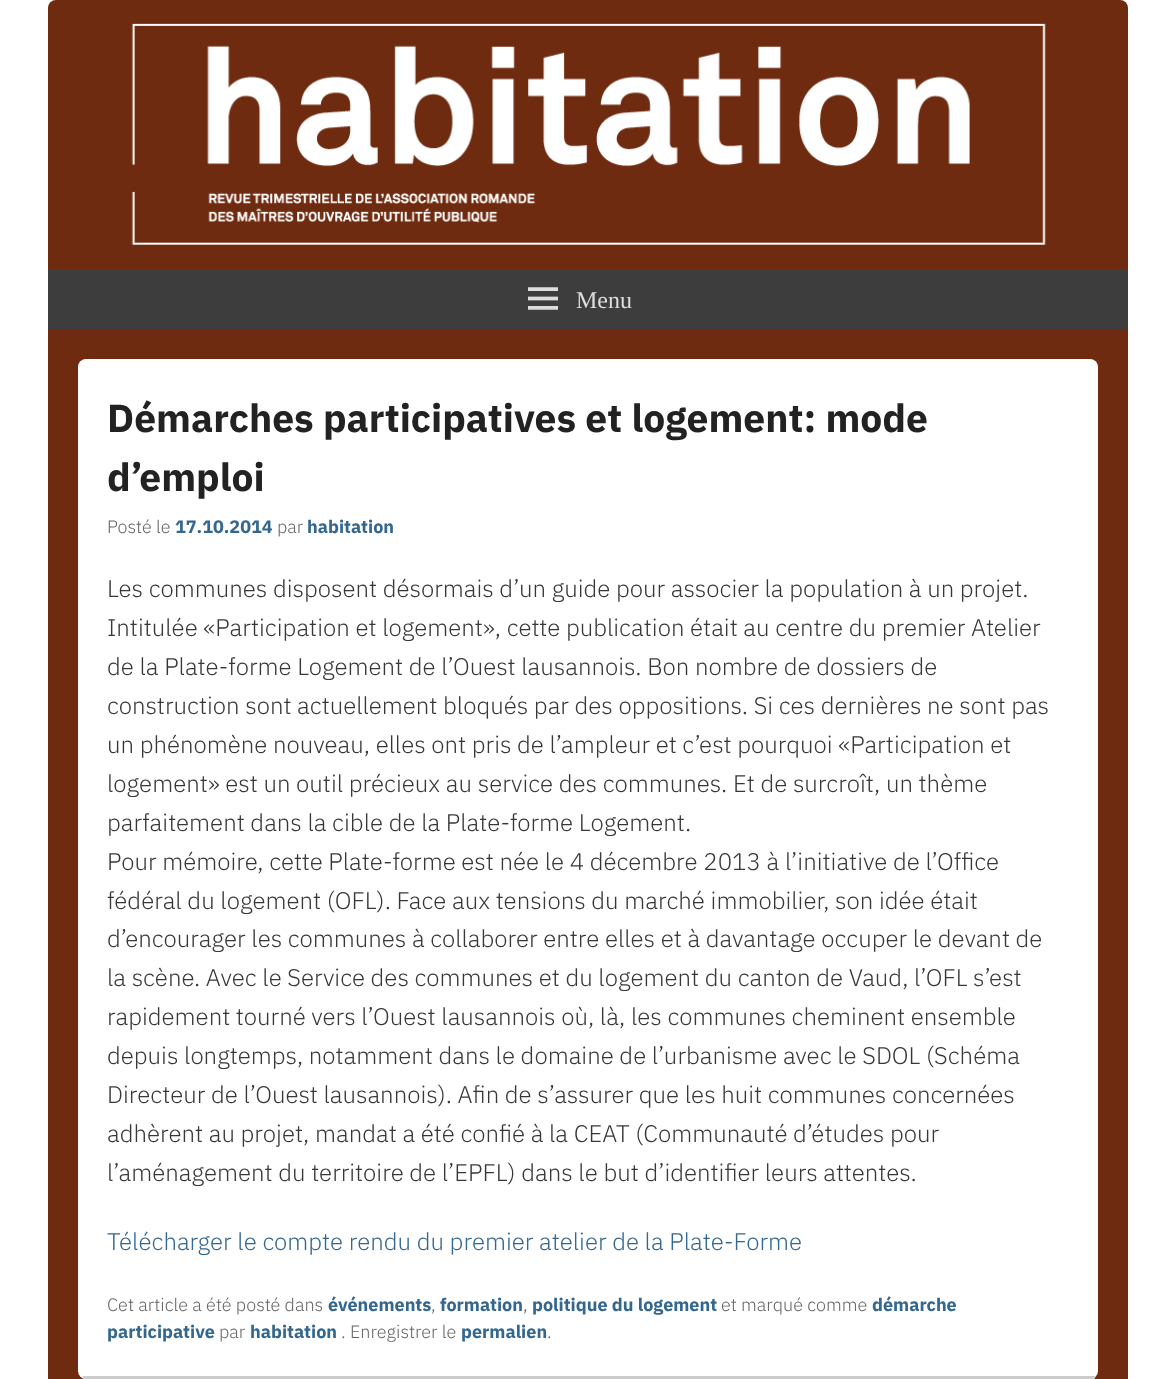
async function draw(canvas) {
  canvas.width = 1174
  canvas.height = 1379
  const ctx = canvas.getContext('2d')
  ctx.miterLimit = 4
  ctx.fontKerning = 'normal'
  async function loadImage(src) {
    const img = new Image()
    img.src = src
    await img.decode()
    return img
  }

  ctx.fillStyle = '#fff'
  ctx.fillRect(0, 0, 1174, 1379)
  ctx.fillStyle = '#6f2b10'
  ctx.beginPath()
  ctx.roundRect(48, 0, 1080, 329, [8, 8, 0, 0])
  ctx.fill()
  ctx.drawImage(await loadImage('image0.png'), 131, 23, 915, 222)
  ctx.fillStyle = '#3d3d3d'
  ctx.fillRect(48, 269, 1080, 60)
  ctx.drawImage(await loadImage('image1.png'), 528, 287, 30, 23)
  ctx.font = '24px Liberation Serif'
  ctx.fillStyle = '#ddd'
  ctx.fillText('Menu', 576, 308)
  ctx.fillStyle = '#6f2b10'
  ctx.fillRect(48, 329, 1080, 1050)
  ctx.fillStyle = '#fff'
  ctx.beginPath()
  ctx.roundRect(78, 359, 1020, 1020, 8)
  ctx.fill()
  ctx.fillStyle = '#ccc'
  ctx.fillRect(83, 1376, 1012, 3)
  ctx.font = 'bold 39px IBM Plex Sans'
  ctx.fillStyle = '#222'
  ctx.fillText('Démarches participatives et logement: mode', 107, 432)
  ctx.fillText('d’emploi', 107, 491)
  ctx.font = '300 18px IBM Plex Sans'
  ctx.fillStyle = '#666'
  ctx.fillText('Posté le', 107, 533)
  ctx.font = 'bold 18px IBM Plex Sans'
  ctx.fillStyle = '#34678f'
  ctx.fillText('17.10.2014', 175, 533)
  ctx.font = '300 18px IBM Plex Sans'
  ctx.fillStyle = '#666'
  ctx.fillText('par', 277, 533)
  ctx.font = 'bold 18px IBM Plex Sans'
  ctx.fillStyle = '#34678f'
  ctx.fillText('habitation', 307, 533)
  ctx.font = '300 24px IBM Plex Sans'
  ctx.fillStyle = '#373737'
  ctx.fillText('Les communes disposent désormais d’un guide pour associer la population à un projet.', 107, 597)
  ctx.fillText('Intitulée «Participation et logement», cette publication était au centre du premier Atelier', 107, 636)
  ctx.fillText('de la Plate-forme Logement de l’Ouest lausannois. Bon nombre de dossiers de', 107, 675)
  ctx.fillText('construction sont actuellement bloqués par des oppositions. Si ces dernières ne sont pas', 107, 714)
  ctx.fillText('un phénomène nouveau, elles ont pris de l’ampleur et c’est pourquoi «Participation et', 107, 753)
  ctx.fillText('logement» est un outil précieux au service des communes. Et de surcroît, un thème', 107, 792)
  ctx.fillText('parfaitement dans la cible de la Plate-forme Logement.', 107, 831)
  ctx.fillText('Pour mémoire, cette Plate-forme est née le 4 décembre 2013 à l’initiative de l’Office', 107, 870)
  ctx.fillText('fédéral du logement (OFL). Face aux tensions du marché immobilier, son idée était', 107, 909)
  ctx.fillText('d’encourager les communes à collaborer entre elles et à davantage occuper le devant de', 107, 947)
  ctx.fillText('la scène. Avec le Service des communes et du logement du canton de Vaud, l’OFL s’est', 107, 986)
  ctx.fillText('rapidement tourné vers l’Ouest lausannois où, là, les communes cheminent ensemble', 107, 1025)
  ctx.fillText('depuis longtemps, notamment dans le domaine de l’urbanisme avec le SDOL (Schéma', 107, 1064)
  ctx.fillText('Directeur de l’Ouest lausannois). Afin de s’assurer que les huit communes concernées', 107, 1103)
  ctx.fillText('adhèrent au projet, mandat a été confié à la CEAT (Communauté d’études pour', 107, 1142)
  ctx.fillText('l’aménagement du territoire de l’EPFL) dans le but d’identifier leurs attentes.', 107, 1181)
  ctx.fillStyle = '#34678f'
  ctx.fillText('Télécharger le compte rendu du premier atelier de la Plate-Forme', 107, 1250)
  ctx.font = '300 18px IBM Plex Sans'
  ctx.fillStyle = '#666'
  ctx.fillText('Cet article a été posté dans', 107, 1311)
  ctx.font = 'bold 18px IBM Plex Sans'
  ctx.fillStyle = '#34678f'
  ctx.fillText('événements', 328, 1311)
  ctx.font = '300 18px IBM Plex Sans'
  ctx.fillStyle = '#666'
  ctx.fillText(',', 431, 1311)
  ctx.font = 'bold 18px IBM Plex Sans'
  ctx.fillStyle = '#34678f'
  ctx.fillText('formation', 440, 1311)
  ctx.font = '300 18px IBM Plex Sans'
  ctx.fillStyle = '#666'
  ctx.fillText(',', 523, 1311)
  ctx.font = 'bold 18px IBM Plex Sans'
  ctx.fillStyle = '#34678f'
  ctx.fillText('politique du logement', 532, 1311)
  ctx.font = '300 18px IBM Plex Sans'
  ctx.fillStyle = '#666'
  ctx.fillText('et marqué comme', 721, 1311)
  ctx.font = 'bold 18px IBM Plex Sans'
  ctx.fillStyle = '#34678f'
  ctx.fillText('démarche', 872, 1311)
  ctx.fillText('participative', 107, 1338)
  ctx.font = '300 18px IBM Plex Sans'
  ctx.fillStyle = '#666'
  ctx.fillText('par', 219, 1338)
  ctx.font = 'bold 18px IBM Plex Sans'
  ctx.fillStyle = '#34678f'
  ctx.fillText('habitation', 250, 1338)
  ctx.font = '300 18px IBM Plex Sans'
  ctx.fillStyle = '#666'
  ctx.fillText('. Enregistrer le', 341, 1338)
  ctx.font = 'bold 18px IBM Plex Sans'
  ctx.fillStyle = '#34678f'
  ctx.fillText('permalien', 461, 1338)
  ctx.font = '300 18px IBM Plex Sans'
  ctx.fillStyle = '#666'
  ctx.fillText('.', 547, 1338)
}

draw(document.querySelector('canvas'))
